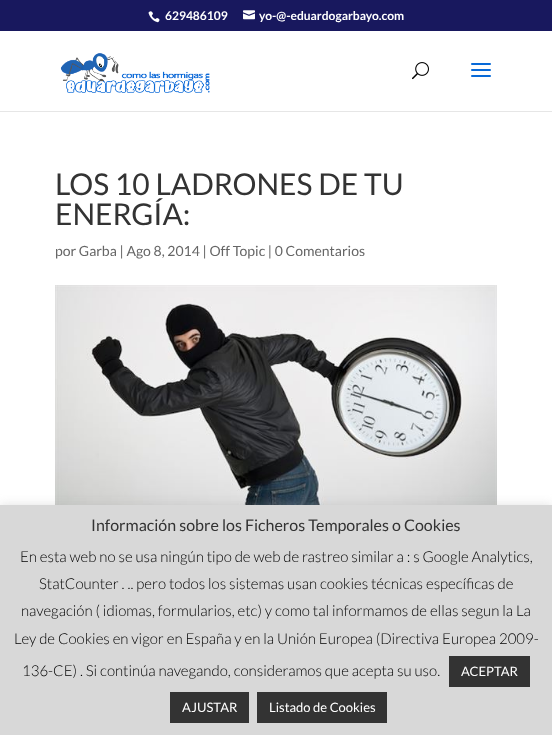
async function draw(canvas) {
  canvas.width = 552
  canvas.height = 735
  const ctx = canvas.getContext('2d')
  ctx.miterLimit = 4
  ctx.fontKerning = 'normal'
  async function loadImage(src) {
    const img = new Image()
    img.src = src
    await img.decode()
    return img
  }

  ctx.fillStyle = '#fff'
  ctx.fillRect(0, 0, 552, 735)
  ctx.fillStyle = '#18185e'
  ctx.fillRect(0, 0, 552, 31)
  ctx.drawImage(await loadImage('image0.png'), 148, 11, 12, 12)
  ctx.font = 'bold 12px Lato'
  ctx.fillStyle = '#fff'
  ctx.fillText('629486109', 165, 20)
  ctx.drawImage(await loadImage('image1.png'), 243, 10, 12, 10)
  ctx.fillText('yo-@-eduardogarbayo.com', 259, 20)
  ctx.fillStyle = '#e6e6e6'
  ctx.fillRect(0, 111, 552, 1)
  ctx.drawImage(await loadImage('image2.png'), 60, 53, 150, 40)
  ctx.drawImage(await loadImage('image3.png'), 412, 62, 17, 18)
  ctx.drawImage(await loadImage('image4.png'), 471, 63, 20, 14)
  ctx.font = '30px Lato'
  ctx.fillStyle = '#333'
  ctx.fillText('LOS 10 LADRONES DE TU', 55, 195)
  ctx.fillText('ENERGÍA:', 55, 225)
  ctx.font = '14px Lato'
  ctx.fillStyle = '#666'
  ctx.fillText('por Garba | Ago 8, 2014 | Off Topic | 0 Comentarios', 55, 256)
  ctx.drawImage(await loadImage('image5.png'), 55, 285, 442, 220)
  ctx.fillStyle = '#acabab4d'
  ctx.filter = 'blur(5px)'
  ctx.beginPath()
  ctx.rect(0, 504, 552, 230)
  ctx.fill()
  ctx.filter = 'none'
  ctx.fillStyle = '#d8d8d8'
  ctx.fillRect(0, 505, 552, 230)
  ctx.font = '16px Lato'
  ctx.fillStyle = '#333'
  ctx.fillText('Información sobre los Ficheros Temporales o Cookies', 91, 531)
  ctx.font = '300 15px Lato'
  ctx.fillStyle = '#000'
  ctx.fillText('En esta web no se usa ningún tipo de web de rastreo similar a : s Google Analytics,', 20, 562)
  ctx.fillText('StatCounter . .. pero todos los sistemas usan cookies técnicas específicas de', 39, 589)
  ctx.fillText('navegación ( idiomas, formularios, etc) y como tal informamos de ellas segun la La', 21, 616)
  ctx.fillText('Ley de Cookies en vigor en España y en la Unión Europea (Directiva Europea 2009-', 14, 644)
  ctx.fillText('136-CE) . Si continúa navegando, consideramos que acepta su uso.', 22, 676)
  ctx.fillStyle = '#333'
  ctx.fillRect(449, 656, 81, 31)
  ctx.font = '13px Lato'
  ctx.fillStyle = '#fff'
  ctx.fillText('ACEPTAR', 461, 676)
  ctx.fillStyle = '#333'
  ctx.fillRect(170, 692, 79, 31)
  ctx.fillStyle = '#fff'
  ctx.fillText('AJUSTAR', 182, 712)
  ctx.fillStyle = '#333'
  ctx.fillRect(257, 692, 130, 31)
  ctx.fillStyle = '#fff'
  ctx.fillText('Listado de Cookies', 269, 712)
}

draw(document.querySelector('canvas'))
